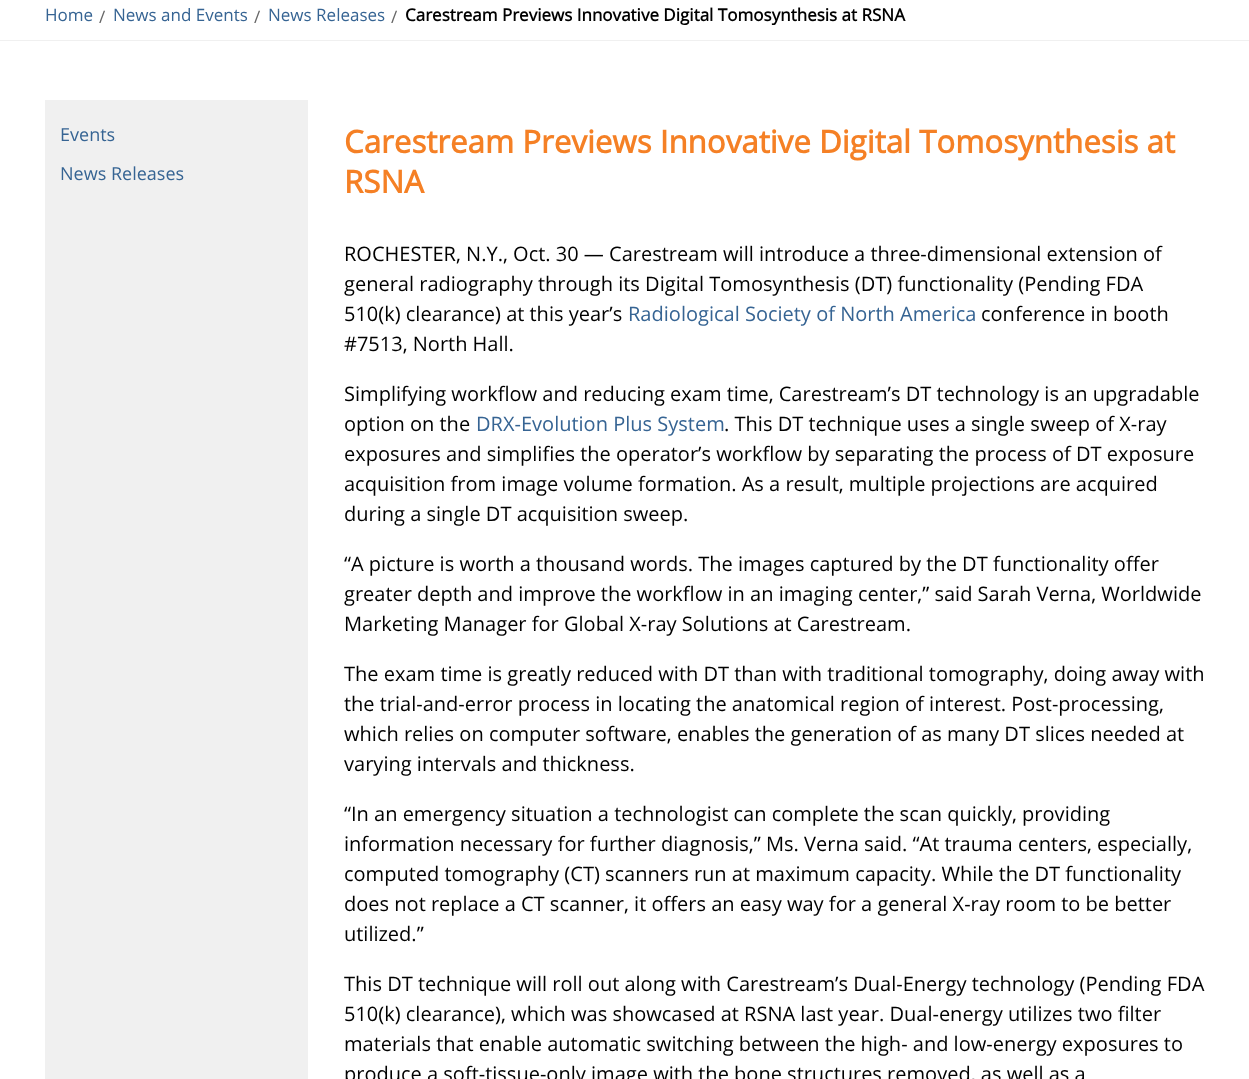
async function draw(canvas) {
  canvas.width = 1249
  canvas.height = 1079
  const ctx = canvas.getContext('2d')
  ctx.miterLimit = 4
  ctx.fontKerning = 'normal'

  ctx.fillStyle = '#fff'
  ctx.fillRect(0, 0, 1249, 1079)
  ctx.fillStyle = '#f0f0f0'
  ctx.fillRect(0, 40, 1249, 1)
  ctx.font = '17px Open Sans'
  ctx.fillStyle = '#366493'
  ctx.fillText('Home', 45, 21)
  ctx.fillStyle = '#666'
  ctx.fillText('/', 99, 23)
  ctx.fillStyle = '#366493'
  ctx.fillText('News and Events', 113, 21)
  ctx.fillStyle = '#666'
  ctx.fillText('/', 254, 23)
  ctx.fillStyle = '#366493'
  ctx.fillText('News Releases', 268, 21)
  ctx.fillStyle = '#666'
  ctx.fillText('/', 391, 23)
  ctx.font = 'bold 17px Open Sans'
  ctx.fillStyle = '#000'
  ctx.fillText('Carestream Previews Innovative Digital Tomosynthesis at RSNA', 405, 21)
  ctx.fillStyle = '#f0f0f0'
  ctx.fillRect(45, 100, 263, 979)
  ctx.font = '18px Open Sans'
  ctx.fillStyle = '#366493'
  ctx.fillText('Events', 60, 141)
  ctx.fillText('News Releases', 60, 180)
  ctx.font = 'bold 31.25px Open Sans'
  ctx.fillStyle = '#f58025'
  ctx.fillText('Carestream Previews Innovative Digital Tomosynthesis at', 344, 153)
  ctx.fillText('RSNA', 344, 193)
  ctx.font = '20px Open Sans'
  ctx.fillStyle = '#000'
  ctx.fillText('ROCHESTER, N.Y., Oct. 30 — Carestream will introduce a three-dimensional extension of', 344, 261)
  ctx.fillText('general radiography through its Digital Tomosynthesis (DT) functionality (Pending FDA', 344, 291)
  ctx.fillText('510(k) clearance) at this year’s', 344, 321)
  ctx.fillStyle = '#366493'
  ctx.fillText('Radiological Society of North America', 628, 321)
  ctx.fillStyle = '#000'
  ctx.fillText('conference in booth', 981, 321)
  ctx.fillText('#7513, North Hall.', 344, 351)
  ctx.fillText('Simplifying workflow and reducing exam time, Carestream’s DT technology is an upgradable', 344, 401)
  ctx.fillText('option on the', 344, 431)
  ctx.fillStyle = '#366493'
  ctx.fillText('DRX-Evolution Plus System', 476, 431)
  ctx.fillStyle = '#000'
  ctx.fillText('. This DT technique uses a single sweep of X-ray', 724, 431)
  ctx.fillText('exposures and simplifies the operator’s workflow by separating the process of DT exposure', 344, 461)
  ctx.fillText('acquisition from image volume formation. As a result, multiple projections are acquired', 344, 491)
  ctx.fillText('during a single DT acquisition sweep.', 344, 521)
  ctx.fillText('“A picture is worth a thousand words. The images captured by the DT functionality offer', 344, 571)
  ctx.fillText('greater depth and improve the workflow in an imaging center,” said Sarah Verna, Worldwide', 344, 601)
  ctx.fillText('Marketing Manager for Global X-ray Solutions at Carestream.', 344, 631)
  ctx.fillText('The exam time is greatly reduced with DT than with traditional tomography, doing away with', 344, 681)
  ctx.fillText('the trial-and-error process in locating the anatomical region of interest. Post-processing,', 344, 711)
  ctx.fillText('which relies on computer software, enables the generation of as many DT slices needed at', 344, 741)
  ctx.fillText('varying intervals and thickness.', 344, 771)
  ctx.fillText('“In an emergency situation a technologist can complete the scan quickly, providing', 344, 821)
  ctx.fillText('information necessary for further diagnosis,” Ms. Verna said. “At trauma centers, especially,', 344, 851)
  ctx.fillText('computed tomography (CT) scanners run at maximum capacity. While the DT functionality', 344, 881)
  ctx.fillText('does not replace a CT scanner, it offers an easy way for a general X-ray room to be better', 344, 911)
  ctx.fillText('utilized.”', 344, 941)
  ctx.fillText('This DT technique will roll out along with Carestream’s Dual-Energy technology (Pending FDA', 344, 991)
  ctx.fillText('510(k) clearance), which was showcased at RSNA last year. Dual-energy utilizes two filter', 344, 1021)
  ctx.fillText('materials that enable automatic switching between the high- and low-energy exposures to', 344, 1051)
  ctx.fillText('produce a soft-tissue-only image with the bone structures removed, as well as a', 344, 1081)
}

draw(document.querySelector('canvas'))
